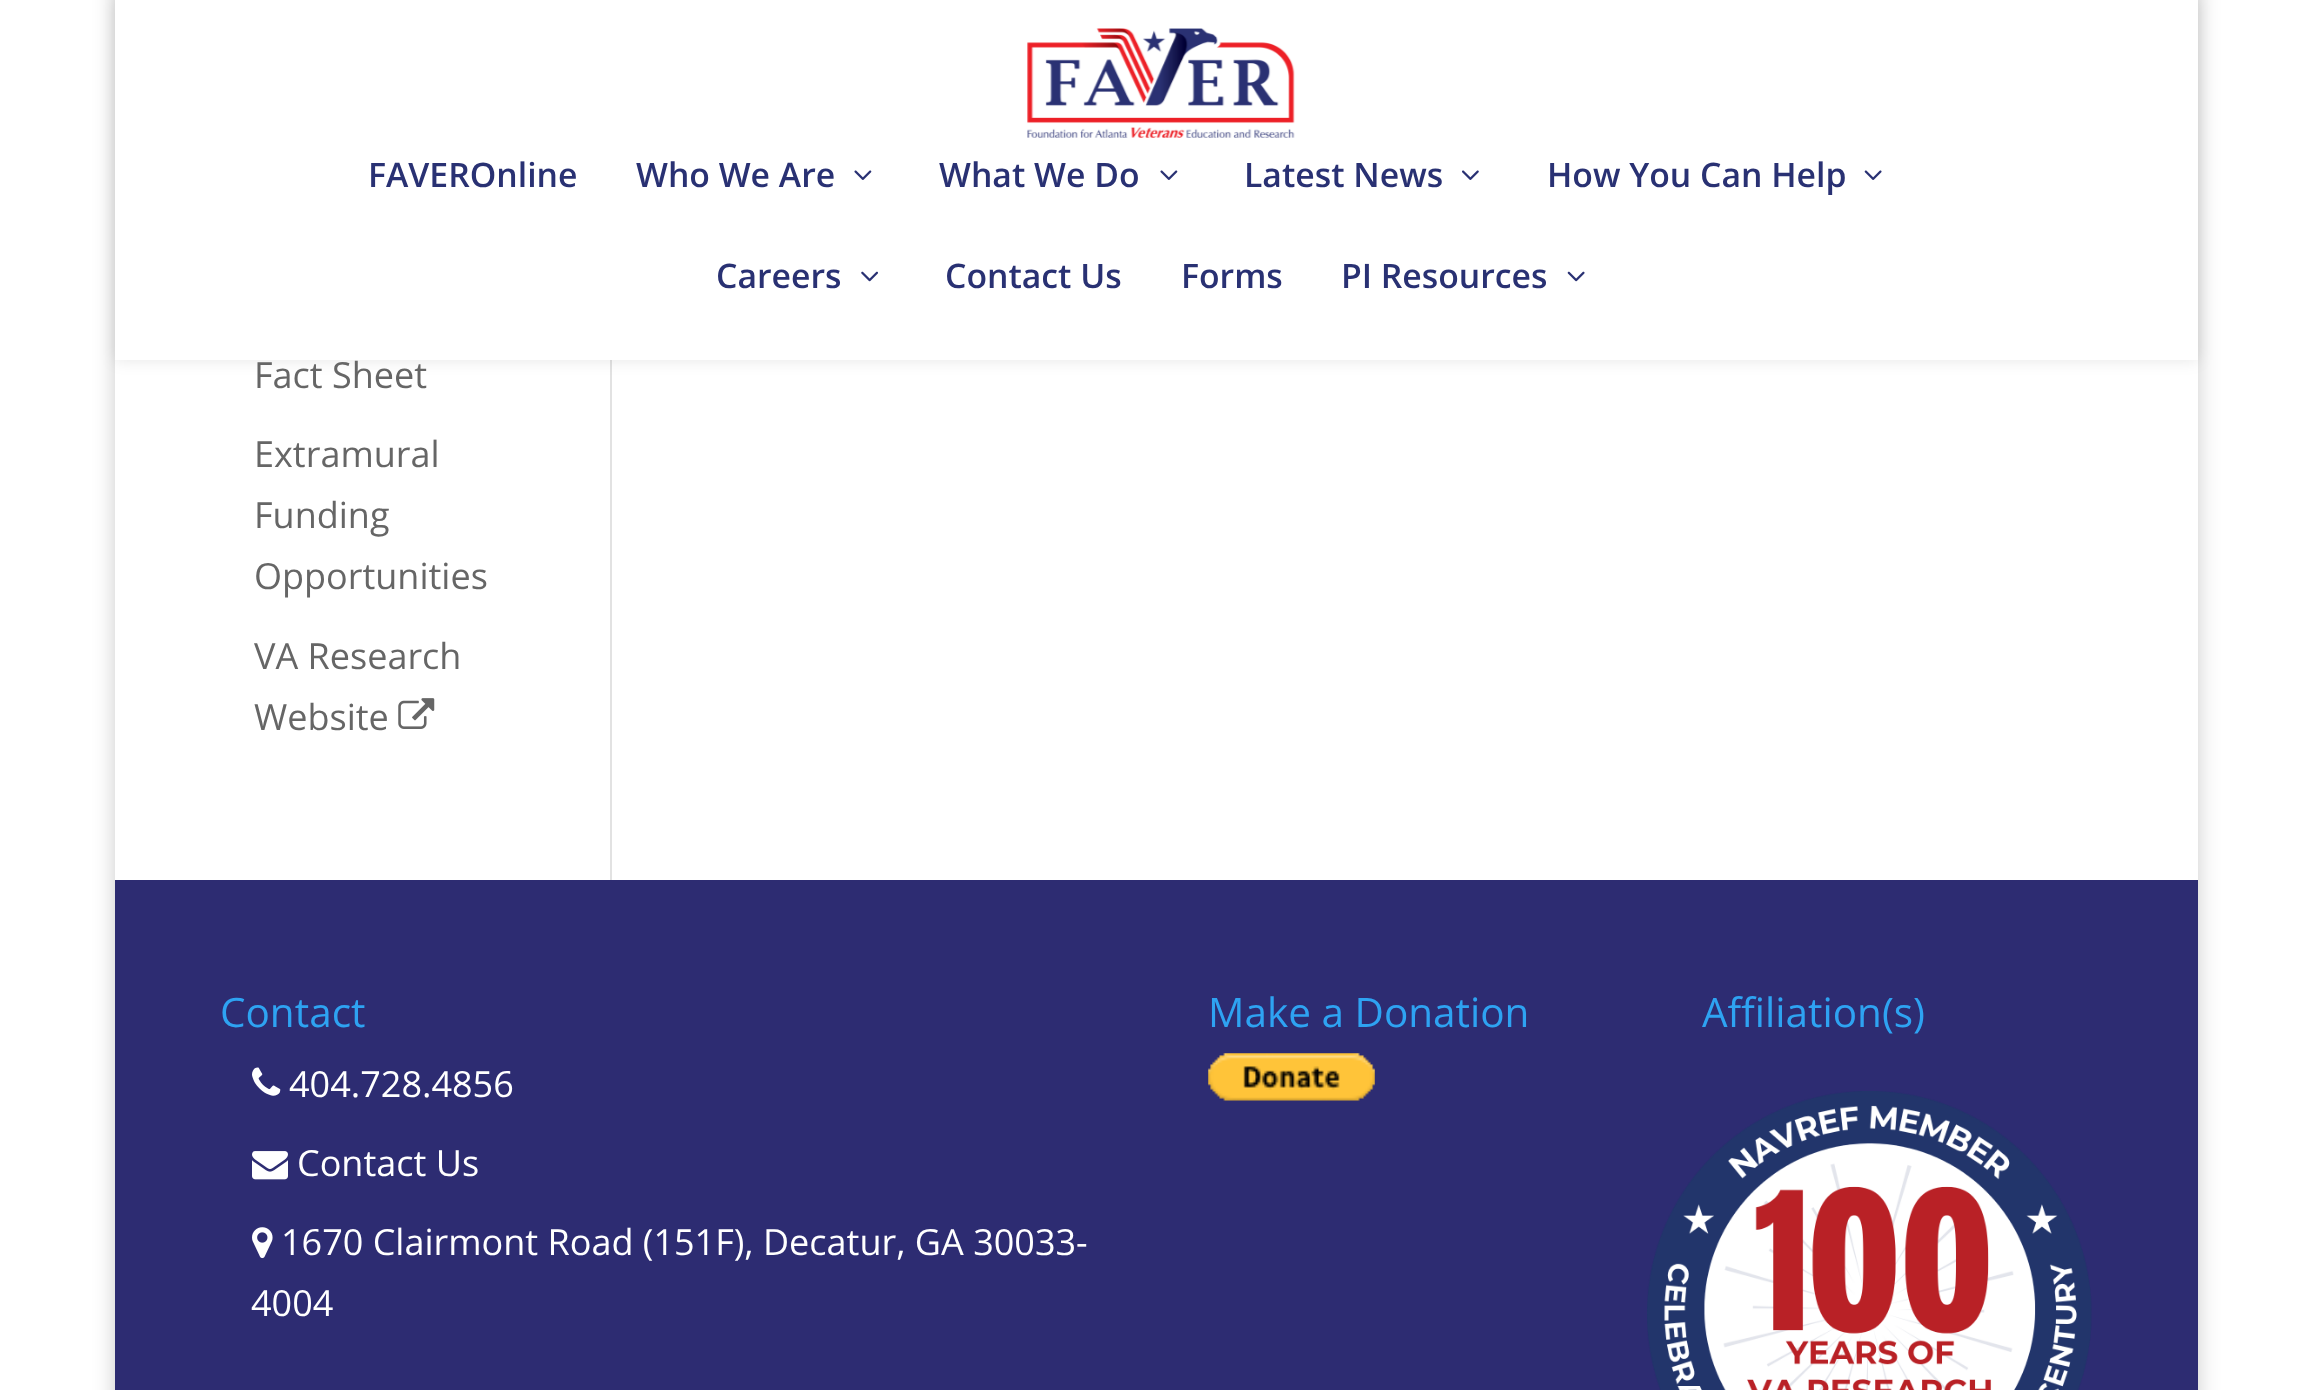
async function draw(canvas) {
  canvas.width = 2313
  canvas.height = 1390
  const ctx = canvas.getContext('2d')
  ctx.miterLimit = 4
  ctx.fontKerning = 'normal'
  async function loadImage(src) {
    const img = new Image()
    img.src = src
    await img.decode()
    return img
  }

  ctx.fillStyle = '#fff'
  ctx.fillRect(0, 0, 2313, 1390)
  ctx.save()
  ctx.beginPath()
  ctx.moveTo(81, 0)
  ctx.lineTo(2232, 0)
  ctx.lineTo(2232, 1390)
  ctx.lineTo(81, 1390)
  ctx.closePath()
  ctx.moveTo(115, -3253)
  ctx.lineTo(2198, -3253)
  ctx.lineTo(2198, 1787)
  ctx.lineTo(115, 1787)
  ctx.closePath()
  ctx.clip('evenodd')
  ctx.fillStyle = '#00000033'
  ctx.filter = 'blur(11px)'
  ctx.beginPath()
  ctx.rect(115, -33, 2083, 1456)
  ctx.fill()
  ctx.filter = 'none'
  ctx.restore()
  ctx.fillStyle = '#e2e2e2'
  ctx.fillRect(610, 360, 2, 520)
  ctx.fillStyle = '#0000001a'
  ctx.filter = 'blur(8px)'
  ctx.beginPath()
  ctx.rect(115, 0, 2083, 360)
  ctx.fill()
  ctx.filter = 'none'
  ctx.fillStyle = '#fff'
  ctx.fillRect(115, 0, 2083, 360)
  ctx.drawImage(await loadImage('image0.png'), 1027, 28, 268, 110)
  ctx.font = '600 33.75px Open Sans'
  ctx.fillStyle = '#293173'
  ctx.fillText('FAVEROnline', 368, 187)
  ctx.fillText('Who We Are', 636, 187)
  ctx.drawImage(await loadImage('image1.png'), 854, 170, 18, 10)
  ctx.fillText('What We Do', 939, 187)
  ctx.drawImage(await loadImage('image1.png'), 1160, 170, 18, 10)
  ctx.fillText('Latest News', 1244, 187)
  ctx.drawImage(await loadImage('image2.png'), 1462, 170, 17, 10)
  ctx.fillText('How You Can Help', 1547, 187)
  ctx.drawImage(await loadImage('image3.png'), 1864, 170, 18, 10)
  ctx.fillText('Careers', 716, 288)
  ctx.drawImage(await loadImage('image4.png'), 861, 271, 17, 11)
  ctx.fillText('Contact Us', 945, 288)
  ctx.fillText('Forms', 1181, 288)
  ctx.fillText('PI Resources', 1341, 288)
  ctx.drawImage(await loadImage('image5.png'), 1567, 271, 18, 11)
  ctx.font = '36px Open Sans'
  ctx.fillStyle = '#666'
  ctx.fillText('Fact Sheet', 254, 388)
  ctx.fillText('Extramural', 254, 467)
  ctx.fillText('Funding', 254, 528)
  ctx.fillText('Opportunities', 254, 589)
  ctx.fillText('VA Research', 254, 669)
  ctx.fillText('Website', 254, 730)
  ctx.drawImage(await loadImage('image6.png'), 398, 698, 37, 31)
  ctx.fillStyle = '#2d2c72'
  ctx.fillRect(115, 880, 2083, 510)
  ctx.font = '40.5px Open Sans'
  ctx.fillStyle = '#2ea3f2'
  ctx.fillText('Contact', 220, 1027)
  ctx.drawImage(await loadImage('image7.png'), 252, 1067, 29, 29)
  ctx.font = '36px Open Sans'
  ctx.fillStyle = '#fff'
  ctx.fillText('404.728.4856', 289, 1097)
  ctx.drawImage(await loadImage('image8.png'), 252, 1151, 36, 29)
  ctx.fillText('Contact Us', 297, 1176)
  ctx.drawImage(await loadImage('image9.png'), 252, 1227, 21, 32)
  ctx.fillText('1670 Clairmont Road (151F), Decatur, GA 30033-', 281, 1255)
  ctx.fillText('4004', 251, 1316)
  ctx.font = '40.5px Open Sans'
  ctx.fillStyle = '#2ea3f2'
  ctx.fillText('Make a Donation', 1208, 1027)
  ctx.drawImage(await loadImage('image10.png'), 1208, 1053, 167, 48)
  ctx.fillText('Affiliation(s)', 1702, 1027)
  ctx.drawImage(await loadImage('image11.png'), 1647, 1091, 445, 299)
}

draw(document.querySelector('canvas'))
